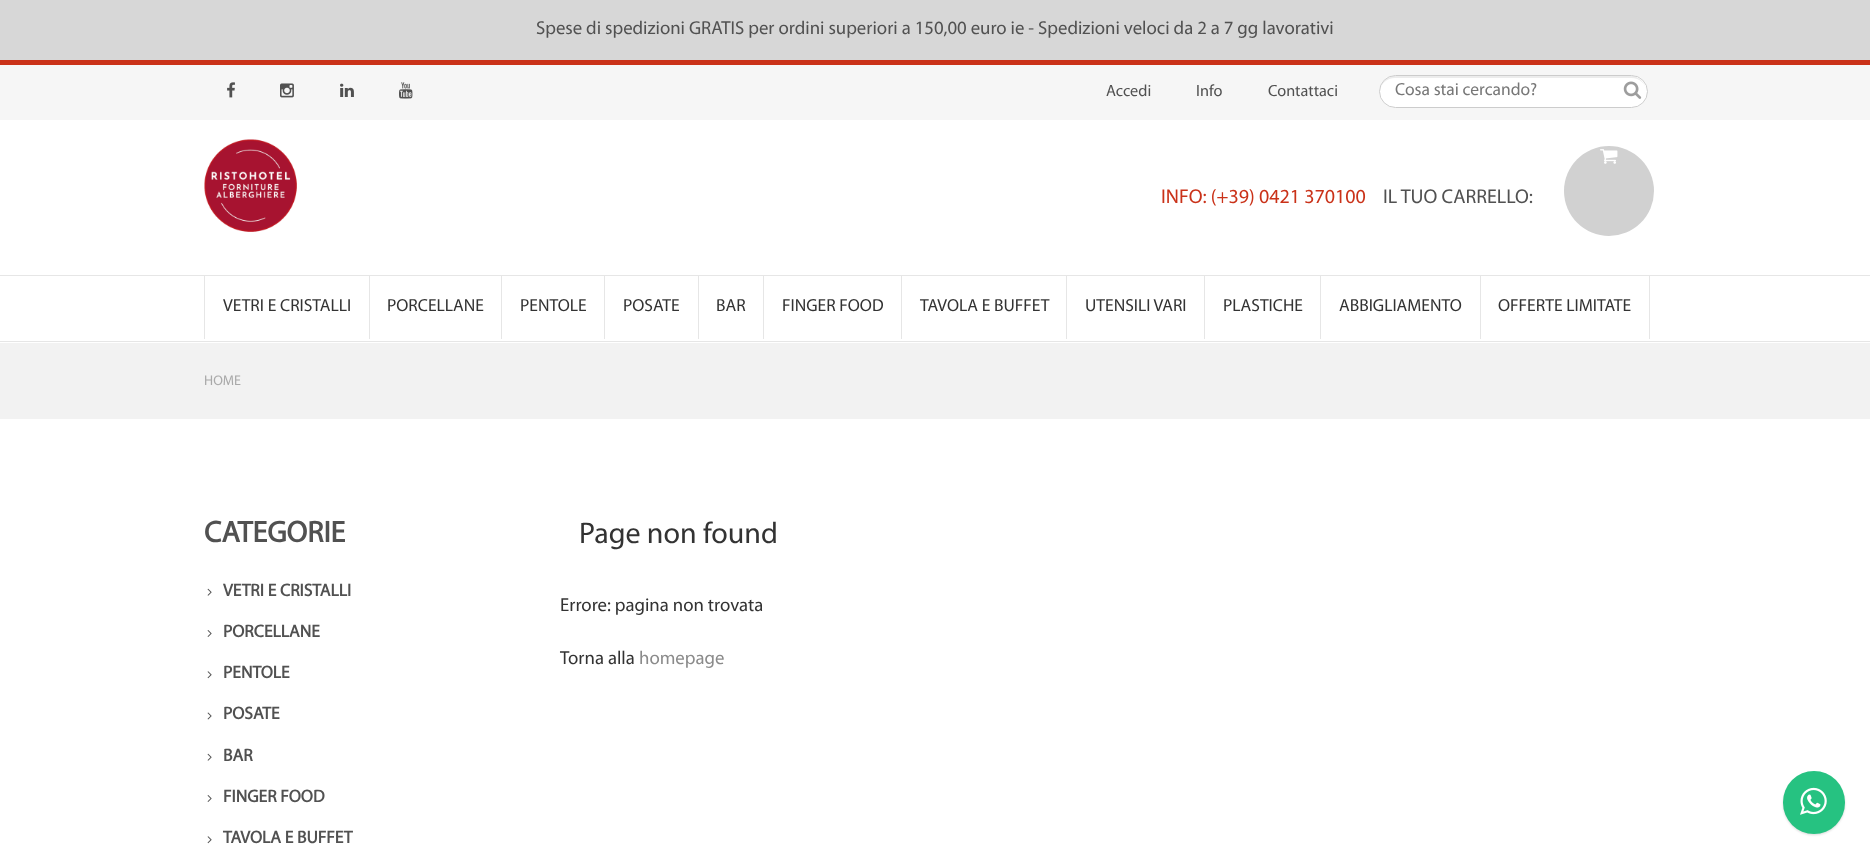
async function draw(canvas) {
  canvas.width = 1870
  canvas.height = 858
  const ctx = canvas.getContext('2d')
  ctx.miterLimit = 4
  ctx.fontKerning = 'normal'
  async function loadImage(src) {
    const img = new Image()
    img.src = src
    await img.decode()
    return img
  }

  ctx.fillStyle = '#fff'
  ctx.fillRect(0, 0, 1870, 858)
  ctx.fillStyle = '#d7d7d7'
  ctx.fillRect(0, 0, 1870, 60)
  ctx.font = '18.75px Myriad'
  ctx.fillStyle = '#515151'
  ctx.fillText('Spese di spedizioni GRATIS per ordini superiori a 150,00 euro ie - Spedizioni veloci da 2 a 7 gg lavorativi', 536, 34)
  ctx.fillStyle = '#f6f6f6'
  ctx.fillRect(0, 65, 1870, 55)
  ctx.fillStyle = '#ca3219'
  ctx.fillRect(0, 60, 1870, 5)
  ctx.drawImage(await loadImage('image0.png'), 227, 82, 8, 16)
  ctx.drawImage(await loadImage('image1.png'), 280, 83, 14, 15)
  ctx.drawImage(await loadImage('image2.png'), 340, 83, 14, 14)
  ctx.drawImage(await loadImage('image3.png'), 399, 82, 14, 17)
  ctx.font = '16.25px Myriad'
  ctx.fillStyle = '#515151'
  ctx.fillText('Accedi', 1106, 96)
  ctx.fillText('Info', 1196, 96)
  ctx.fillText('Contattaci', 1268, 96)
  ctx.fillStyle = '#fff'
  ctx.beginPath()
  ctx.roundRect(1379, 75, 269, 33, 16.5)
  ctx.fill()
  ctx.fillStyle = '#ececec'
  ctx.beginPath()
  ctx.moveTo(1395, 78)
  ctx.lineTo(1631, 78)
  ctx.bezierCurveTo(1640, 78, 1646, 84, 1646, 91)
  ctx.bezierCurveTo(1646, 83, 1639, 76, 1631, 76)
  ctx.lineTo(1395, 76)
  ctx.bezierCurveTo(1387, 76, 1380, 83, 1380, 92)
  ctx.bezierCurveTo(1380, 84, 1387, 78, 1395, 78)
  ctx.closePath()
  ctx.fill()
  ctx.beginPath()
  ctx.roundRect(1379.5, 75.5, 268, 32, 16)
  ctx.strokeStyle = '#ccc'
  ctx.stroke()
  ctx.font = '17.5px Myriad'
  ctx.fillStyle = '#777'
  ctx.fillText('Cosa stai cercando?', 1395, 95)
  ctx.drawImage(await loadImage('image4.png'), 1623, 81, 19, 18)
  ctx.drawImage(await loadImage('image5.png'), 204, 139, 93, 93)
  ctx.font = '20px Myriad'
  ctx.fillStyle = '#ca3219'
  ctx.fillText('INFO: (+39) 0421 370100', 1161, 203)
  ctx.fillStyle = '#515151'
  ctx.fillText('IL TUO CARRELLO:', 1383, 203)
  ctx.fillStyle = '#d1d1d1'
  ctx.beginPath()
  ctx.arc(1609, 191, 45, 0, 2 * Math.PI)
  ctx.fill()
  ctx.drawImage(await loadImage('image6.png'), 1600, 149, 18, 15)
  ctx.fillStyle = '#e6e6e6'
  ctx.fillRect(0, 275, 1870, 1)
  ctx.fillRect(0, 341, 1870, 1)
  ctx.fillRect(204, 276, 1, 63)
  ctx.font = '17.5px Myriad'
  ctx.fillStyle = '#333'
  ctx.fillText('VETRI E CRISTALLI', 223, 311)
  ctx.fillStyle = '#e6e6e6'
  ctx.fillRect(369, 276, 1, 63)
  ctx.fillStyle = '#333'
  ctx.fillText('PORCELLANE', 387, 311)
  ctx.fillStyle = '#e6e6e6'
  ctx.fillRect(501, 276, 1, 63)
  ctx.fillStyle = '#333'
  ctx.fillText('PENTOLE', 520, 311)
  ctx.fillStyle = '#e6e6e6'
  ctx.fillRect(604, 276, 1, 63)
  ctx.fillStyle = '#333'
  ctx.fillText('POSATE', 623, 311)
  ctx.fillStyle = '#e6e6e6'
  ctx.fillRect(698, 276, 1, 63)
  ctx.fillStyle = '#333'
  ctx.fillText('BAR', 716, 311)
  ctx.fillStyle = '#e6e6e6'
  ctx.fillRect(763, 276, 1, 63)
  ctx.fillStyle = '#333'
  ctx.fillText('FINGER FOOD', 782, 311)
  ctx.fillStyle = '#e6e6e6'
  ctx.fillRect(901, 276, 1, 63)
  ctx.fillStyle = '#333'
  ctx.fillText('TAVOLA E BUFFET', 920, 311)
  ctx.fillStyle = '#e6e6e6'
  ctx.fillRect(1066, 276, 1, 63)
  ctx.fillStyle = '#333'
  ctx.fillText('UTENSILI VARI', 1085, 311)
  ctx.fillStyle = '#e6e6e6'
  ctx.fillRect(1204, 276, 1, 63)
  ctx.fillStyle = '#333'
  ctx.fillText('PLASTICHE', 1223, 311)
  ctx.fillStyle = '#e6e6e6'
  ctx.fillRect(1320, 276, 1, 63)
  ctx.fillStyle = '#333'
  ctx.fillText('ABBIGLIAMENTO', 1339, 311)
  ctx.fillStyle = '#e6e6e6'
  ctx.fillRect(1649, 276, 1, 63)
  ctx.fillRect(1480, 276, 1, 63)
  ctx.fillStyle = '#333'
  ctx.fillText('OFFERTE LIMITATE', 1498, 311)
  ctx.fillStyle = '#f2f2f2'
  ctx.fillRect(0, 343, 1870, 76)
  ctx.font = '14px Myriad'
  ctx.fillStyle = '#a9a9a9'
  ctx.fillText('HOME', 204, 385)
  ctx.font = 'bold 30px Myriad'
  ctx.fillStyle = '#515151'
  ctx.fillText('CATEGORIE', 204, 542)
  ctx.drawImage(await loadImage('image7.png'), 207, 588, 5, 8)
  ctx.font = 'bold 17.5px Myriad'
  ctx.fillText('VETRI E CRISTALLI', 223, 596)
  ctx.drawImage(await loadImage('image8.png'), 207, 630, 5, 7)
  ctx.fillText('PORCELLANE', 223, 637)
  ctx.drawImage(await loadImage('image9.png'), 207, 671, 5, 8)
  ctx.fillText('PENTOLE', 223, 678)
  ctx.drawImage(await loadImage('image10.png'), 207, 712, 5, 8)
  ctx.fillText('POSATE', 223, 719)
  ctx.drawImage(await loadImage('image7.png'), 207, 753, 5, 8)
  ctx.fillText('BAR', 223, 761)
  ctx.drawImage(await loadImage('image8.png'), 207, 795, 5, 7)
  ctx.fillText('FINGER FOOD', 223, 802)
  ctx.drawImage(await loadImage('image9.png'), 207, 836, 5, 8)
  ctx.fillText('TAVOLA E BUFFET', 223, 843)
  ctx.font = '30px Myriad'
  ctx.fillStyle = '#333'
  ctx.fillText('Page non found', 579, 543)
  ctx.font = '18.75px Myriad'
  ctx.fillText('Errore: pagina non trovata', 560, 611)
  ctx.fillText('Torna alla', 560, 664)
  ctx.fillStyle = '#8b8b8b'
  ctx.fillText('homepage', 639, 664)
  ctx.fillStyle = '#00000026'
  ctx.filter = 'blur(1px)'
  ctx.beginPath()
  ctx.roundRect(1783, 773, 62, 62, 31)
  ctx.fill()
  ctx.filter = 'none'
  ctx.fillStyle = '#26c281'
  ctx.beginPath()
  ctx.roundRect(1783, 771, 62, 63, 31)
  ctx.fill()
  ctx.drawImage(await loadImage('image11.png'), 1800, 787, 27, 28)
}

draw(document.querySelector('canvas'))
